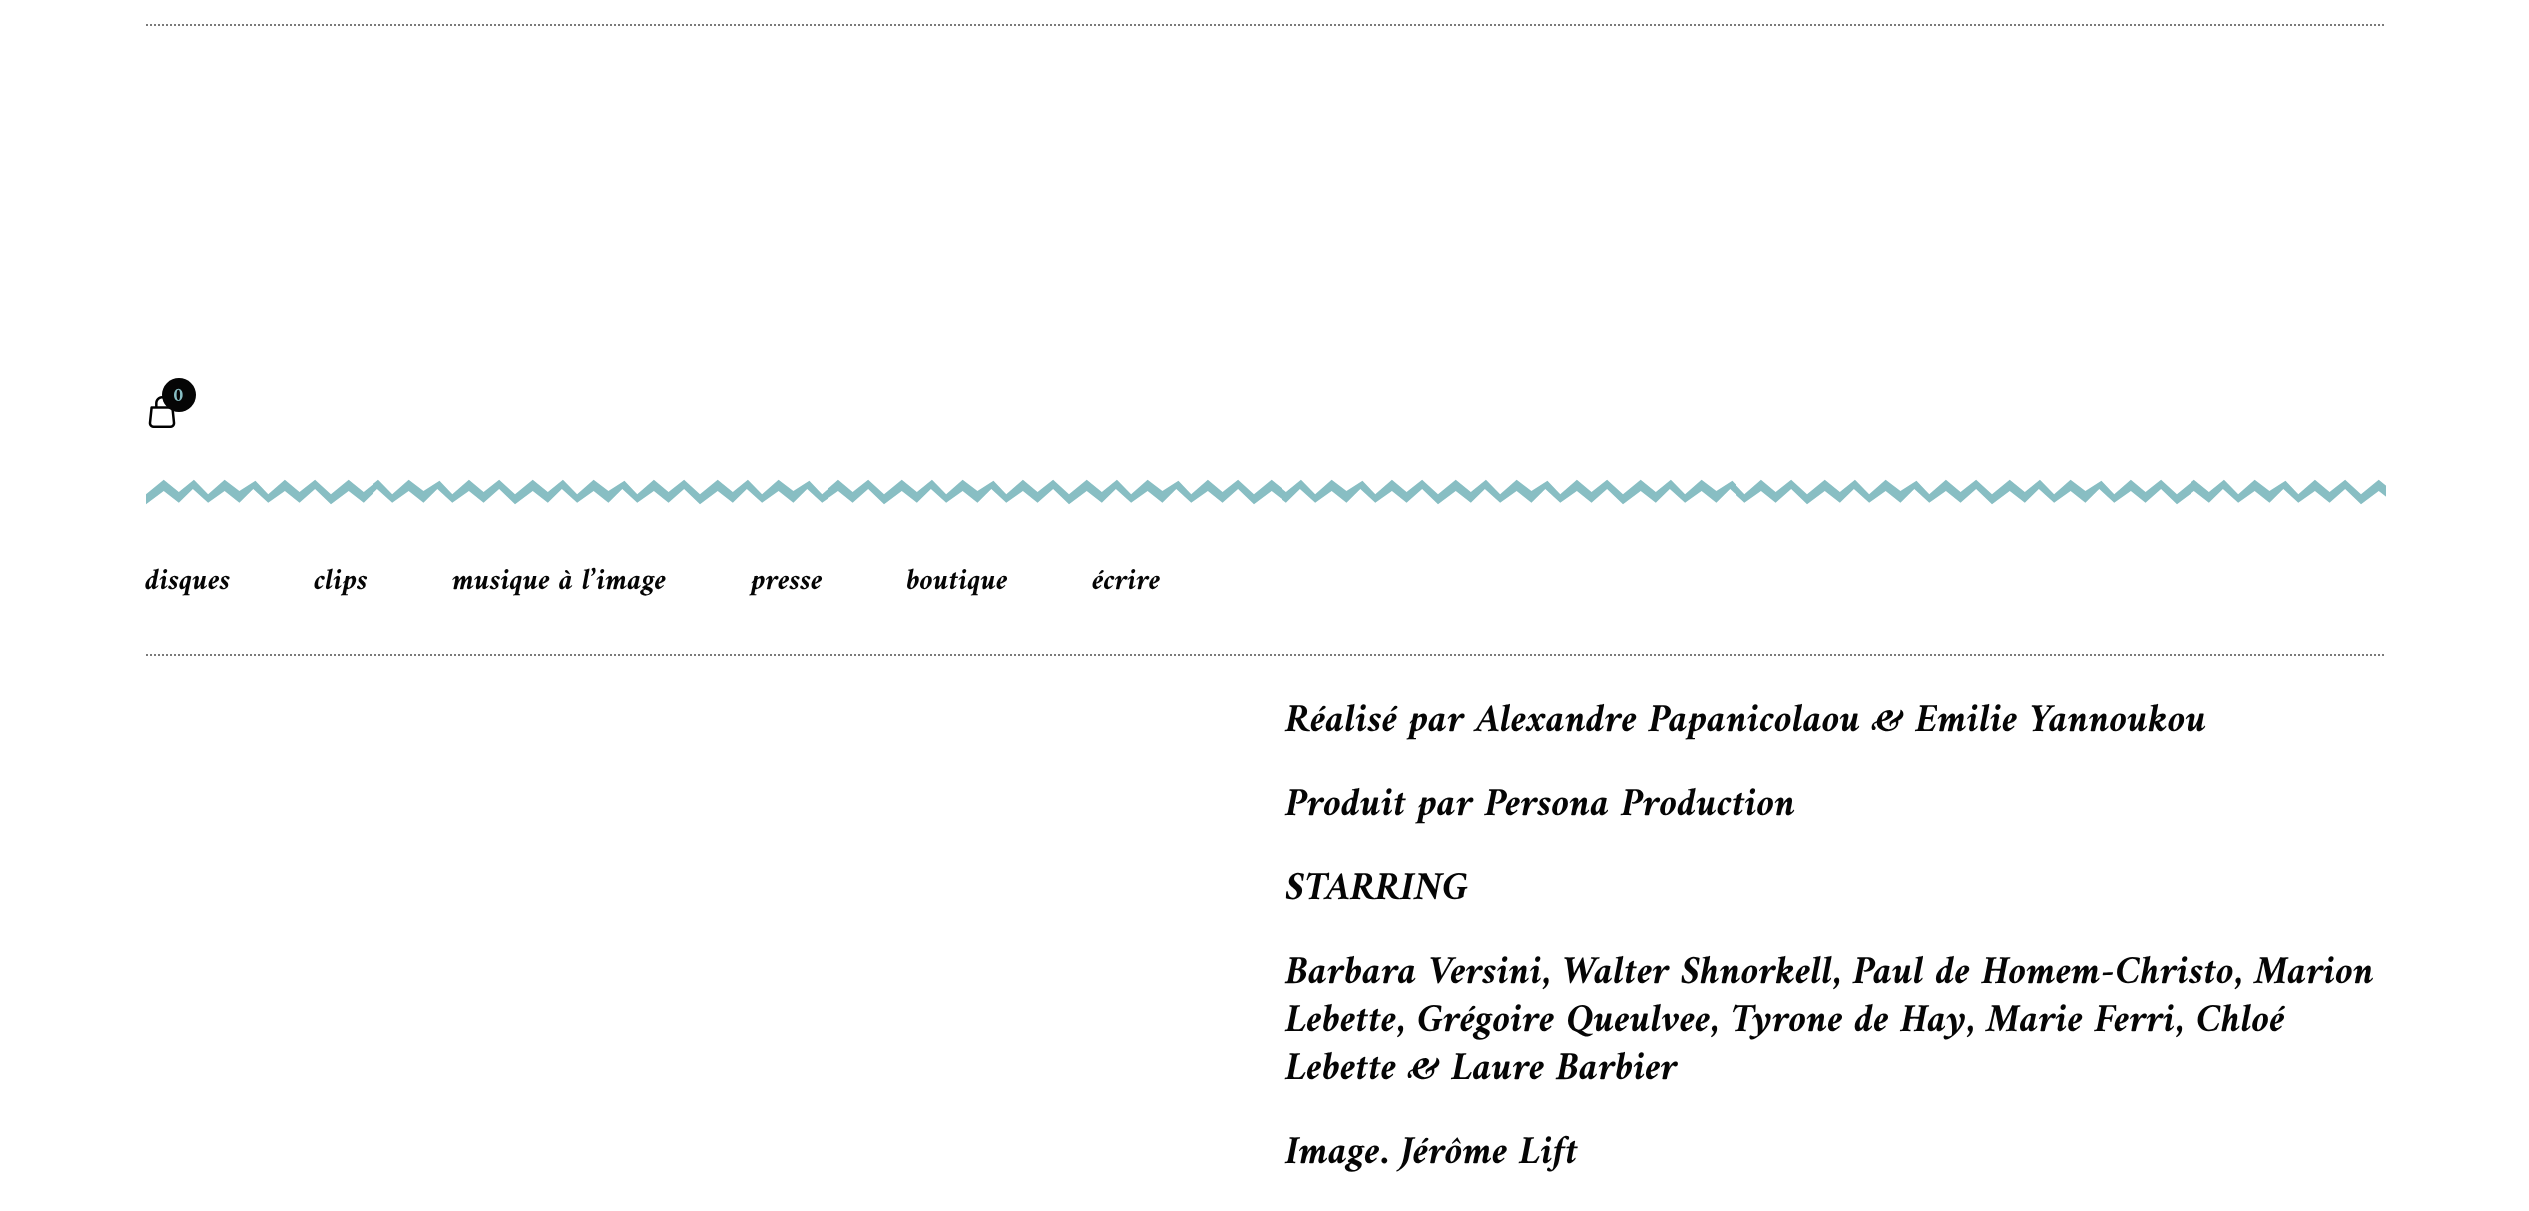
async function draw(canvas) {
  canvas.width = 2529
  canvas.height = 1211
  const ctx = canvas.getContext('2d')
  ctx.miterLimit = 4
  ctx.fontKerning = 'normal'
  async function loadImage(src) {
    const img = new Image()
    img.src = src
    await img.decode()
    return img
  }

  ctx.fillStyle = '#fff'
  ctx.fillRect(0, 0, 2529, 1211)
  ctx.beginPath()
  ctx.moveTo(146, 25)
  ctx.lineTo(2386, 25)
  ctx.strokeStyle = '#7a7a7a'
  ctx.lineWidth = 2
  ctx.setLineDash([2, 2])
  ctx.stroke()
  ctx.drawImage(await loadImage('image0.png'), 148, 396, 28, 32)
  ctx.fillStyle = '#050505'
  ctx.beginPath()
  ctx.arc(179, 395, 17, 0, 2 * Math.PI)
  ctx.fill()
  ctx.font = 'italic bold 20px Amiri'
  ctx.fillStyle = '#88bec3'
  ctx.fillText('0', 173, 401)
  ctx.drawImage(await loadImage('image1.png'), 146, 479, 2240, 26)
  ctx.font = 'italic bold 30px Amiri'
  ctx.fillStyle = '#050505'
  ctx.fillText('disques', 145, 589)
  ctx.fillText('clips', 314, 589)
  ctx.fillText('musique à l’image', 452, 589)
  ctx.fillText('presse', 751, 589)
  ctx.fillText('boutique', 906, 589)
  ctx.fillText('écrire', 1092, 589)
  ctx.beginPath()
  ctx.moveTo(146, 655)
  ctx.lineTo(2386, 655)
  ctx.stroke()
  ctx.font = 'italic bold 40px Amiri'
  ctx.fillText('Réalisé par Alexandre Papanicolaou & Emilie Yannoukou', 1285, 731)
  ctx.fillText('Produit par Persona Production', 1285, 815)
  ctx.fillText('STARRING', 1285, 899)
  ctx.fillText('Barbara Versini, Walter Shnorkell, Paul de Homem-Christo, Marion', 1285, 983)
  ctx.fillText('Lebette, Grégoire Queulvee, Tyrone de Hay, Marie Ferri, Chloé', 1285, 1031)
  ctx.fillText('Lebette & Laure Barbier', 1285, 1079)
  ctx.fillText('Image. Jérôme Lift', 1285, 1163)
}

draw(document.querySelector('canvas'))
